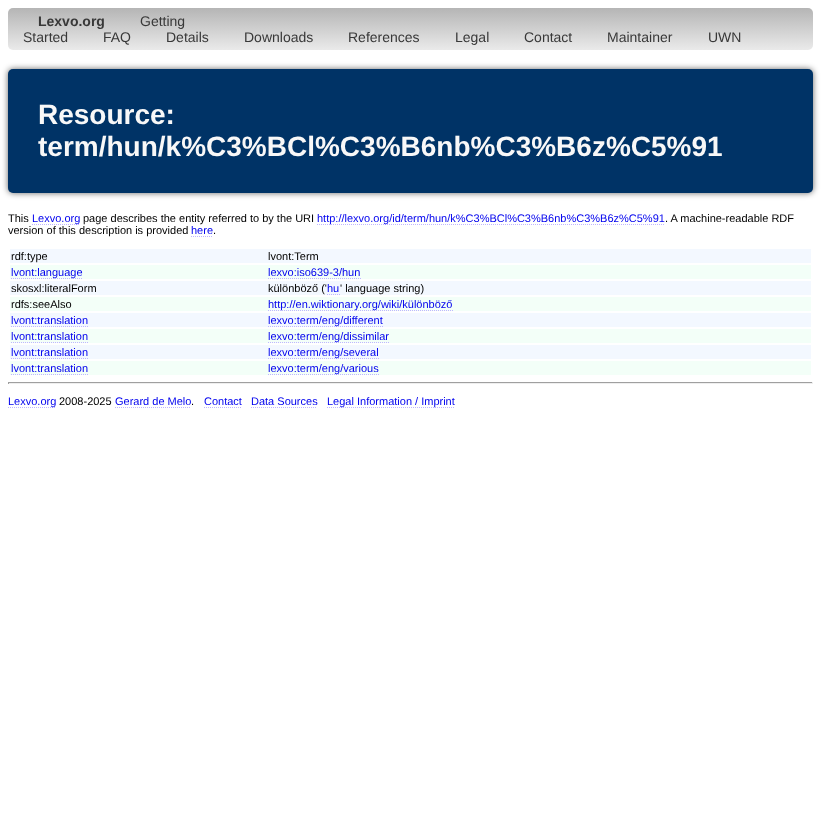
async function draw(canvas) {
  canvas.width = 821
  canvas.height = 826
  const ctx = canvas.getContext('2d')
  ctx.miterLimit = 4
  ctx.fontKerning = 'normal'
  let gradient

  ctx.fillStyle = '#fff'
  ctx.fillRect(0, 0, 821, 826)
  gradient = ctx.createLinearGradient(411, 8, 411, 50)
  gradient.addColorStop(0, '#b5b5b5')
  gradient.addColorStop(1, '#eaeaea')
  ctx.fillStyle = gradient
  ctx.beginPath()
  ctx.roundRect(8, 8, 805, 42, 5)
  ctx.fill()
  ctx.font = 'bold 14px Liberation Sans'
  ctx.fillStyle = '#383838'
  ctx.fillText('Lexvo.org', 38, 26)
  ctx.font = '14px Liberation Sans'
  ctx.fillText('Getting', 140, 26)
  ctx.fillText('Started', 23, 42)
  ctx.fillText('FAQ', 103, 42)
  ctx.fillText('Details', 166, 42)
  ctx.fillText('Downloads', 244, 42)
  ctx.fillText('References', 348, 42)
  ctx.fillText('Legal', 455, 42)
  ctx.fillText('Contact', 524, 42)
  ctx.fillText('Maintainer', 607, 42)
  ctx.fillText('UWN', 708, 42)
  ctx.fillStyle = '#00000099'
  ctx.filter = 'blur(3px)'
  ctx.beginPath()
  ctx.roundRect(8, 69, 805, 124, 5)
  ctx.fill()
  ctx.filter = 'none'
  ctx.fillStyle = '#036'
  ctx.beginPath()
  ctx.roundRect(8, 69, 805, 124, 5)
  ctx.fill()
  ctx.font = 'bold 28px Liberation Sans'
  ctx.fillStyle = '#f8f8f8'
  ctx.fillText('Resource:', 38, 124)
  ctx.fillText('term/hun/k%C3%BCl%C3%B6nb%C3%B6z%C5%91', 38, 156)
  ctx.font = '11px Liberation Sans'
  ctx.fillStyle = '#000'
  ctx.fillText('This', 8, 222)
  ctx.beginPath()
  ctx.moveTo(32, 224.5)
  ctx.lineTo(80, 224.5)
  ctx.strokeStyle = '#bfb6ff'
  ctx.setLineDash([1, 1])
  ctx.stroke()
  ctx.fillStyle = '#00e'
  ctx.fillText('Lexvo.org', 32, 222)
  ctx.fillStyle = '#000'
  ctx.fillText('page describes the entity referred to by the URI', 83, 222)
  ctx.beginPath()
  ctx.moveTo(317, 224.5)
  ctx.lineTo(665, 224.5)
  ctx.stroke()
  ctx.fillStyle = '#00e'
  ctx.fillText('http://lexvo.org/id/term/hun/k%C3%BCl%C3%B6nb%C3%B6z%C5%91', 317, 222)
  ctx.fillStyle = '#000'
  ctx.fillText('. A machine-readable RDF', 665, 222)
  ctx.fillText('version of this description is provided', 8, 234)
  ctx.fillStyle = '#00e'
  ctx.fillText('here', 191, 234)
  ctx.beginPath()
  ctx.moveTo(191, 236.5)
  ctx.lineTo(213, 236.5)
  ctx.stroke()
  ctx.fillStyle = '#000'
  ctx.fillText('.', 213, 234)
  ctx.fillStyle = '#f3f8ff'
  ctx.fillRect(10, 249, 801, 14)
  ctx.fillStyle = '#000'
  ctx.fillText('rdf:type', 11, 260)
  ctx.fillText('lvont:Term', 268, 260)
  ctx.fillStyle = '#f3fff8'
  ctx.fillRect(10, 265, 801, 14)
  ctx.beginPath()
  ctx.moveTo(11, 278.5)
  ctx.lineTo(83, 278.5)
  ctx.stroke()
  ctx.fillStyle = '#00e'
  ctx.fillText('lvont:language', 11, 276)
  ctx.fillText('lexvo:iso639-3/hun', 268, 276)
  ctx.beginPath()
  ctx.moveTo(268, 278.5)
  ctx.lineTo(361, 278.5)
  ctx.stroke()
  ctx.fillStyle = '#f3f8ff'
  ctx.fillRect(10, 281, 801, 14)
  ctx.fillStyle = '#000'
  ctx.fillText('skosxl:literalForm', 11, 292)
  ctx.fillText('különböző (\'', 268, 292)
  ctx.fillStyle = '#00e'
  ctx.fillText('hu', 327, 292)
  ctx.beginPath()
  ctx.moveTo(327, 294.5)
  ctx.lineTo(340, 294.5)
  ctx.stroke()
  ctx.fillStyle = '#000'
  ctx.fillText('\' language string)', 340, 292)
  ctx.fillStyle = '#f3fff8'
  ctx.fillRect(10, 297, 801, 14)
  ctx.fillStyle = '#000'
  ctx.fillText('rdfs:seeAlso', 11, 308)
  ctx.beginPath()
  ctx.moveTo(268, 310.5)
  ctx.lineTo(453, 310.5)
  ctx.stroke()
  ctx.fillStyle = '#00e'
  ctx.fillText('http://en.wiktionary.org/wiki/különböző', 268, 308)
  ctx.fillStyle = '#f3f8ff'
  ctx.fillRect(10, 313, 801, 14)
  ctx.fillStyle = '#00e'
  ctx.fillText('lvont:translation', 11, 324)
  ctx.beginPath()
  ctx.moveTo(11, 326.5)
  ctx.lineTo(88, 326.5)
  ctx.stroke()
  ctx.beginPath()
  ctx.moveTo(268, 326.5)
  ctx.lineTo(383, 326.5)
  ctx.stroke()
  ctx.fillText('lexvo:term/eng/different', 268, 324)
  ctx.fillStyle = '#f3fff8'
  ctx.fillRect(10, 329, 801, 14)
  ctx.fillStyle = '#00e'
  ctx.fillText('lvont:translation', 11, 340)
  ctx.beginPath()
  ctx.moveTo(11, 342.5)
  ctx.lineTo(88, 342.5)
  ctx.stroke()
  ctx.beginPath()
  ctx.moveTo(268, 342.5)
  ctx.lineTo(389, 342.5)
  ctx.stroke()
  ctx.fillText('lexvo:term/eng/dissimilar', 268, 340)
  ctx.fillStyle = '#f3f8ff'
  ctx.fillRect(10, 345, 801, 14)
  ctx.fillStyle = '#00e'
  ctx.fillText('lvont:translation', 11, 356)
  ctx.beginPath()
  ctx.moveTo(11, 358.5)
  ctx.lineTo(88, 358.5)
  ctx.stroke()
  ctx.beginPath()
  ctx.moveTo(268, 358.5)
  ctx.lineTo(379, 358.5)
  ctx.stroke()
  ctx.fillText('lexvo:term/eng/several', 268, 356)
  ctx.fillStyle = '#f3fff8'
  ctx.fillRect(10, 361, 801, 14)
  ctx.fillStyle = '#00e'
  ctx.fillText('lvont:translation', 11, 372)
  ctx.beginPath()
  ctx.moveTo(11, 374.5)
  ctx.lineTo(88, 374.5)
  ctx.stroke()
  ctx.beginPath()
  ctx.moveTo(268, 374.5)
  ctx.lineTo(379, 374.5)
  ctx.stroke()
  ctx.fillText('lexvo:term/eng/various', 268, 372)
  ctx.fillStyle = '#9f9f9f'
  ctx.fillRect(8, 382, 805, 1)
  ctx.fillStyle = '#eee'
  ctx.fillRect(812, 382, 1, 2)
  ctx.fillRect(8, 383, 805, 1)
  ctx.fillStyle = '#9f9f9f'
  ctx.fillRect(8, 382, 1, 2)
  ctx.beginPath()
  ctx.moveTo(8, 407.5)
  ctx.lineTo(56, 407.5)
  ctx.stroke()
  ctx.fillStyle = '#00e'
  ctx.fillText('Lexvo.org', 8, 405)
  ctx.fillStyle = '#000'
  ctx.fillText('2008-2025', 59, 405)
  ctx.fillStyle = '#00e'
  ctx.fillText('Gerard de Melo', 115, 405)
  ctx.beginPath()
  ctx.moveTo(115, 407.5)
  ctx.lineTo(191, 407.5)
  ctx.stroke()
  ctx.fillStyle = '#000'
  ctx.fillText('.', 191, 405)
  ctx.fillStyle = '#00e'
  ctx.fillText('Contact', 204, 405)
  ctx.beginPath()
  ctx.moveTo(204, 407.5)
  ctx.lineTo(242, 407.5)
  ctx.stroke()
  ctx.fillText('Data Sources', 251, 405)
  ctx.beginPath()
  ctx.moveTo(251, 407.5)
  ctx.lineTo(317, 407.5)
  ctx.stroke()
  ctx.beginPath()
  ctx.moveTo(327, 407.5)
  ctx.lineTo(454, 407.5)
  ctx.stroke()
  ctx.fillText('Legal Information / Imprint', 327, 405)
}

draw(document.querySelector('canvas'))
